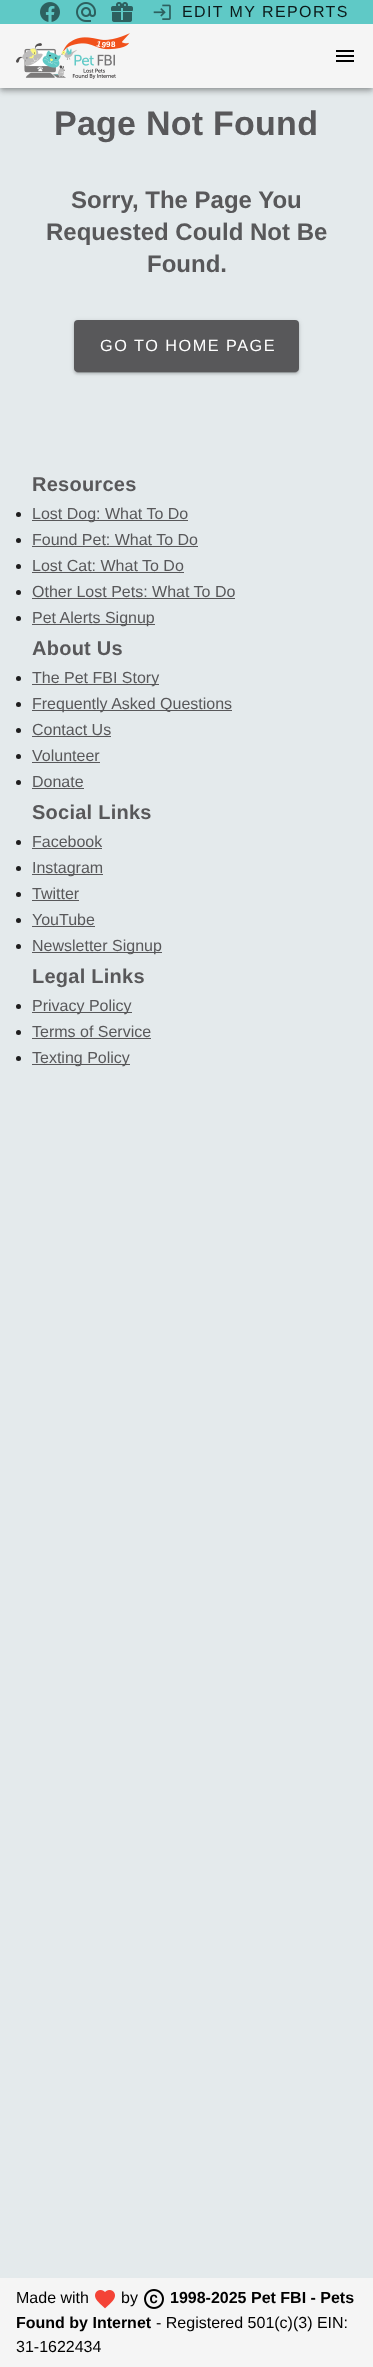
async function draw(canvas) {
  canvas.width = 373
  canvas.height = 2367
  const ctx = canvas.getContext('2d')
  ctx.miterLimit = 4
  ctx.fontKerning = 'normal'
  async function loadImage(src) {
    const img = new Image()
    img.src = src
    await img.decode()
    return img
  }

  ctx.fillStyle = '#e4eaec'
  ctx.fillRect(0, 0, 373, 2367)
  ctx.fillStyle = '#0000001f'
  ctx.filter = 'blur(5px)'
  ctx.beginPath()
  ctx.rect(0, 25, 373, 64)
  ctx.fill()
  ctx.filter = 'none'
  ctx.fillStyle = '#00000024'
  ctx.filter = 'blur(2.5px)'
  ctx.beginPath()
  ctx.rect(0, 28, 373, 64)
  ctx.fill()
  ctx.filter = 'none'
  ctx.fillStyle = '#00000033'
  ctx.filter = 'blur(2px)'
  ctx.beginPath()
  ctx.rect(1, 27, 371, 62)
  ctx.fill()
  ctx.filter = 'none'
  ctx.fillStyle = '#5fc9c6'
  ctx.fillRect(0, 0, 373, 24)
  ctx.drawImage(await loadImage('image0.png'), 40, 2, 20, 20)
  ctx.drawImage(await loadImage('image1.png'), 76, 2, 20, 20)
  ctx.drawImage(await loadImage('image2.png'), 111, 2, 22, 20)
  ctx.drawImage(await loadImage('image3.png'), 153, 4, 18, 16)
  ctx.letterSpacing = '1.4px'
  ctx.font = '16px Liberation Sans'
  ctx.fillStyle = '#0c1a1a'
  ctx.fillText('EDIT MY REPORTS', 182, 17)
  ctx.fillStyle = '#f5f5f5'
  ctx.fillRect(0, 24, 373, 64)
  ctx.drawImage(await loadImage('image4.png'), 16, 33, 114, 46)
  ctx.letterSpacing = '0px'
  ctx.font = 'bold 8px Liberation Sans'
  ctx.fillStyle = '#fff'
  ctx.save()
  ctx.translate(96, 46)
  ctx.rotate(15 * Math.PI / 180)
  ctx.fillText('1', 0, 0)
  ctx.restore()
  ctx.save()
  ctx.translate(101, 47)
  ctx.rotate(12.5 * Math.PI / 180)
  ctx.fillText('9', 0, 0)
  ctx.restore()
  ctx.save()
  ctx.translate(106, 47)
  ctx.rotate(-0.1 * Math.PI / 180)
  ctx.fillText('9', 0, 0)
  ctx.restore()
  ctx.save()
  ctx.translate(111, 47)
  ctx.rotate(-0.4 * Math.PI / 180)
  ctx.fillText('8', 0, 0)
  ctx.restore()
  ctx.drawImage(await loadImage('image5.png'), 336, 50, 18, 12)
  ctx.letterSpacing = '0.25px'
  ctx.font = 'bold 34px Liberation Sans'
  ctx.fillStyle = '#58585a'
  ctx.fillText('Page Not Found', 54, 135)
  ctx.letterSpacing = '0px'
  ctx.font = 'bold 24px Liberation Sans'
  ctx.fillText('Sorry, The Page You', 71, 208)
  ctx.fillText('Requested Could Not Be', 46, 240)
  ctx.fillText('Found.', 147, 272)
  ctx.fillStyle = '#0000001f'
  ctx.filter = 'blur(2.5px)'
  ctx.beginPath()
  ctx.roundRect(74, 321, 225, 52, 4)
  ctx.fill()
  ctx.filter = 'none'
  ctx.fillStyle = '#00000024'
  ctx.filter = 'blur(1px)'
  ctx.beginPath()
  ctx.roundRect(74, 322, 225, 52, 4)
  ctx.fill()
  ctx.filter = 'none'
  ctx.fillStyle = '#00000033'
  ctx.filter = 'blur(0.5px)'
  ctx.beginPath()
  ctx.roundRect(76, 325, 221, 48, 2)
  ctx.fill()
  ctx.filter = 'none'
  ctx.fillStyle = '#58585a'
  ctx.beginPath()
  ctx.roundRect(74, 320, 225, 52, 4)
  ctx.fill()
  ctx.letterSpacing = '1.5px'
  ctx.font = '16.25px Liberation Sans'
  ctx.fillStyle = '#fff'
  ctx.fillText('GO TO HOME PAGE', 100, 351)
  ctx.letterSpacing = '0.25px'
  ctx.font = 'bold 20px Liberation Sans'
  ctx.fillStyle = '#58585a'
  ctx.fillText('Resources', 32, 491)
  ctx.fillStyle = '#1e1e1f'
  ctx.beginPath()
  ctx.arc(18.5, 514.5, 2.5, 0, 2 * Math.PI)
  ctx.fill()
  ctx.fillStyle = '#58585a'
  ctx.fillRect(32, 520, 156, 1)
  ctx.letterSpacing = '0px'
  ctx.font = '16px Liberation Sans'
  ctx.fillText('Lost Dog: What To Do', 32, 519)
  ctx.fillStyle = '#1e1e1f'
  ctx.beginPath()
  ctx.arc(18.5, 540.5, 2.5, 0, 2 * Math.PI)
  ctx.fill()
  ctx.fillStyle = '#58585a'
  ctx.fillText('Found Pet: What To Do', 32, 545)
  ctx.fillRect(32, 546, 166, 1)
  ctx.fillStyle = '#1e1e1f'
  ctx.beginPath()
  ctx.arc(18.5, 566.5, 2.5, 0, 2 * Math.PI)
  ctx.fill()
  ctx.fillStyle = '#58585a'
  ctx.fillText('Lost Cat: What To Do', 32, 571)
  ctx.fillRect(32, 572, 152, 1)
  ctx.fillStyle = '#1e1e1f'
  ctx.beginPath()
  ctx.arc(18.5, 592.5, 2.5, 0, 2 * Math.PI)
  ctx.fill()
  ctx.fillStyle = '#58585a'
  ctx.fillText('Other Lost Pets: What To Do', 32, 597)
  ctx.fillRect(32, 598, 203, 1)
  ctx.fillStyle = '#1e1e1f'
  ctx.beginPath()
  ctx.arc(18.5, 618.5, 2.5, 0, 2 * Math.PI)
  ctx.fill()
  ctx.fillStyle = '#58585a'
  ctx.fillRect(32, 624, 123, 1)
  ctx.fillText('Pet Alerts Signup', 32, 623)
  ctx.letterSpacing = '0.25px'
  ctx.font = 'bold 20px Liberation Sans'
  ctx.fillText('About Us', 32, 655)
  ctx.fillStyle = '#1e1e1f'
  ctx.beginPath()
  ctx.arc(18.5, 678.5, 2.5, 0, 2 * Math.PI)
  ctx.fill()
  ctx.fillStyle = '#58585a'
  ctx.fillRect(32, 684, 127, 1)
  ctx.letterSpacing = '0px'
  ctx.font = '16px Liberation Sans'
  ctx.fillText('The Pet FBI Story', 32, 683)
  ctx.fillStyle = '#1e1e1f'
  ctx.beginPath()
  ctx.arc(18.5, 704.5, 2.5, 0, 2 * Math.PI)
  ctx.fill()
  ctx.fillStyle = '#58585a'
  ctx.fillRect(32, 710, 200, 1)
  ctx.fillText('Frequently Asked Questions', 32, 709)
  ctx.fillStyle = '#1e1e1f'
  ctx.beginPath()
  ctx.arc(18.5, 730.5, 2.5, 0, 2 * Math.PI)
  ctx.fill()
  ctx.fillStyle = '#58585a'
  ctx.fillText('Contact Us', 32, 735)
  ctx.fillRect(32, 736, 79, 1)
  ctx.fillStyle = '#1e1e1f'
  ctx.beginPath()
  ctx.arc(18.5, 756.5, 2.5, 0, 2 * Math.PI)
  ctx.fill()
  ctx.fillStyle = '#58585a'
  ctx.fillText('Volunteer', 32, 761)
  ctx.fillRect(32, 762, 68, 1)
  ctx.fillStyle = '#1e1e1f'
  ctx.beginPath()
  ctx.arc(18.5, 782.5, 2.5, 0, 2 * Math.PI)
  ctx.fill()
  ctx.fillStyle = '#58585a'
  ctx.fillText('Donate', 32, 787)
  ctx.fillRect(32, 788, 52, 1)
  ctx.letterSpacing = '0.25px'
  ctx.font = 'bold 20px Liberation Sans'
  ctx.fillText('Social Links', 32, 819)
  ctx.fillStyle = '#1e1e1f'
  ctx.beginPath()
  ctx.arc(18.5, 842.5, 2.5, 0, 2 * Math.PI)
  ctx.fill()
  ctx.letterSpacing = '0px'
  ctx.font = '16px Liberation Sans'
  ctx.fillStyle = '#58585a'
  ctx.fillText('Facebook', 32, 847)
  ctx.fillRect(32, 848, 70, 1)
  ctx.fillStyle = '#1e1e1f'
  ctx.beginPath()
  ctx.arc(18.5, 868.5, 2.5, 0, 2 * Math.PI)
  ctx.fill()
  ctx.fillStyle = '#58585a'
  ctx.fillRect(32, 874, 71, 1)
  ctx.fillText('Instagram', 32, 873)
  ctx.fillStyle = '#1e1e1f'
  ctx.beginPath()
  ctx.arc(18.5, 894.5, 2.5, 0, 2 * Math.PI)
  ctx.fill()
  ctx.fillStyle = '#58585a'
  ctx.fillText('Twitter', 32, 899)
  ctx.fillRect(32, 900, 47, 1)
  ctx.fillStyle = '#1e1e1f'
  ctx.beginPath()
  ctx.arc(18.5, 920.5, 2.5, 0, 2 * Math.PI)
  ctx.fill()
  ctx.fillStyle = '#58585a'
  ctx.fillText('YouTube', 32, 925)
  ctx.fillRect(32, 926, 63, 1)
  ctx.fillStyle = '#1e1e1f'
  ctx.beginPath()
  ctx.arc(18.5, 946.5, 2.5, 0, 2 * Math.PI)
  ctx.fill()
  ctx.fillStyle = '#58585a'
  ctx.fillRect(32, 952, 130, 1)
  ctx.fillText('Newsletter Signup', 32, 951)
  ctx.letterSpacing = '0.25px'
  ctx.font = 'bold 20px Liberation Sans'
  ctx.fillText('Legal Links', 32, 983)
  ctx.fillStyle = '#1e1e1f'
  ctx.beginPath()
  ctx.arc(18.5, 1006.5, 2.5, 0, 2 * Math.PI)
  ctx.fill()
  ctx.fillStyle = '#58585a'
  ctx.fillRect(32, 1012, 100, 1)
  ctx.letterSpacing = '0px'
  ctx.font = '16px Liberation Sans'
  ctx.fillText('Privacy Policy', 32, 1011)
  ctx.fillStyle = '#1e1e1f'
  ctx.beginPath()
  ctx.arc(18.5, 1032.5, 2.5, 0, 2 * Math.PI)
  ctx.fill()
  ctx.fillStyle = '#58585a'
  ctx.fillText('Terms of Service', 32, 1037)
  ctx.fillRect(32, 1038, 119, 1)
  ctx.fillStyle = '#1e1e1f'
  ctx.beginPath()
  ctx.arc(18.5, 1058.5, 2.5, 0, 2 * Math.PI)
  ctx.fill()
  ctx.fillStyle = '#58585a'
  ctx.fillRect(32, 1064, 98, 1)
  ctx.fillText('Texting Policy', 32, 1063)
  ctx.fillStyle = '#f5f5f5'
  ctx.fillRect(0, 2278, 373, 89)
  ctx.fillStyle = '#000'
  ctx.fillText('Made with', 16, 2303)
  ctx.drawImage(await loadImage('image6.png'), 95, 2290, 20, 19)
  ctx.fillText('by', 121, 2303)
  ctx.drawImage(await loadImage('image7.png'), 144, 2289, 20, 20)
  ctx.font = 'bold 16px Liberation Sans'
  ctx.fillText('1998-2025 Pet FBI - Pets', 170, 2303)
  ctx.fillText('Found by Internet', 16, 2328)
  ctx.font = '16px Liberation Sans'
  ctx.fillText('- Registered 501(c)(3) EIN:', 156, 2328)
  ctx.fillText('‍31-1622434', 16, 2352)
}

draw(document.querySelector('canvas'))
